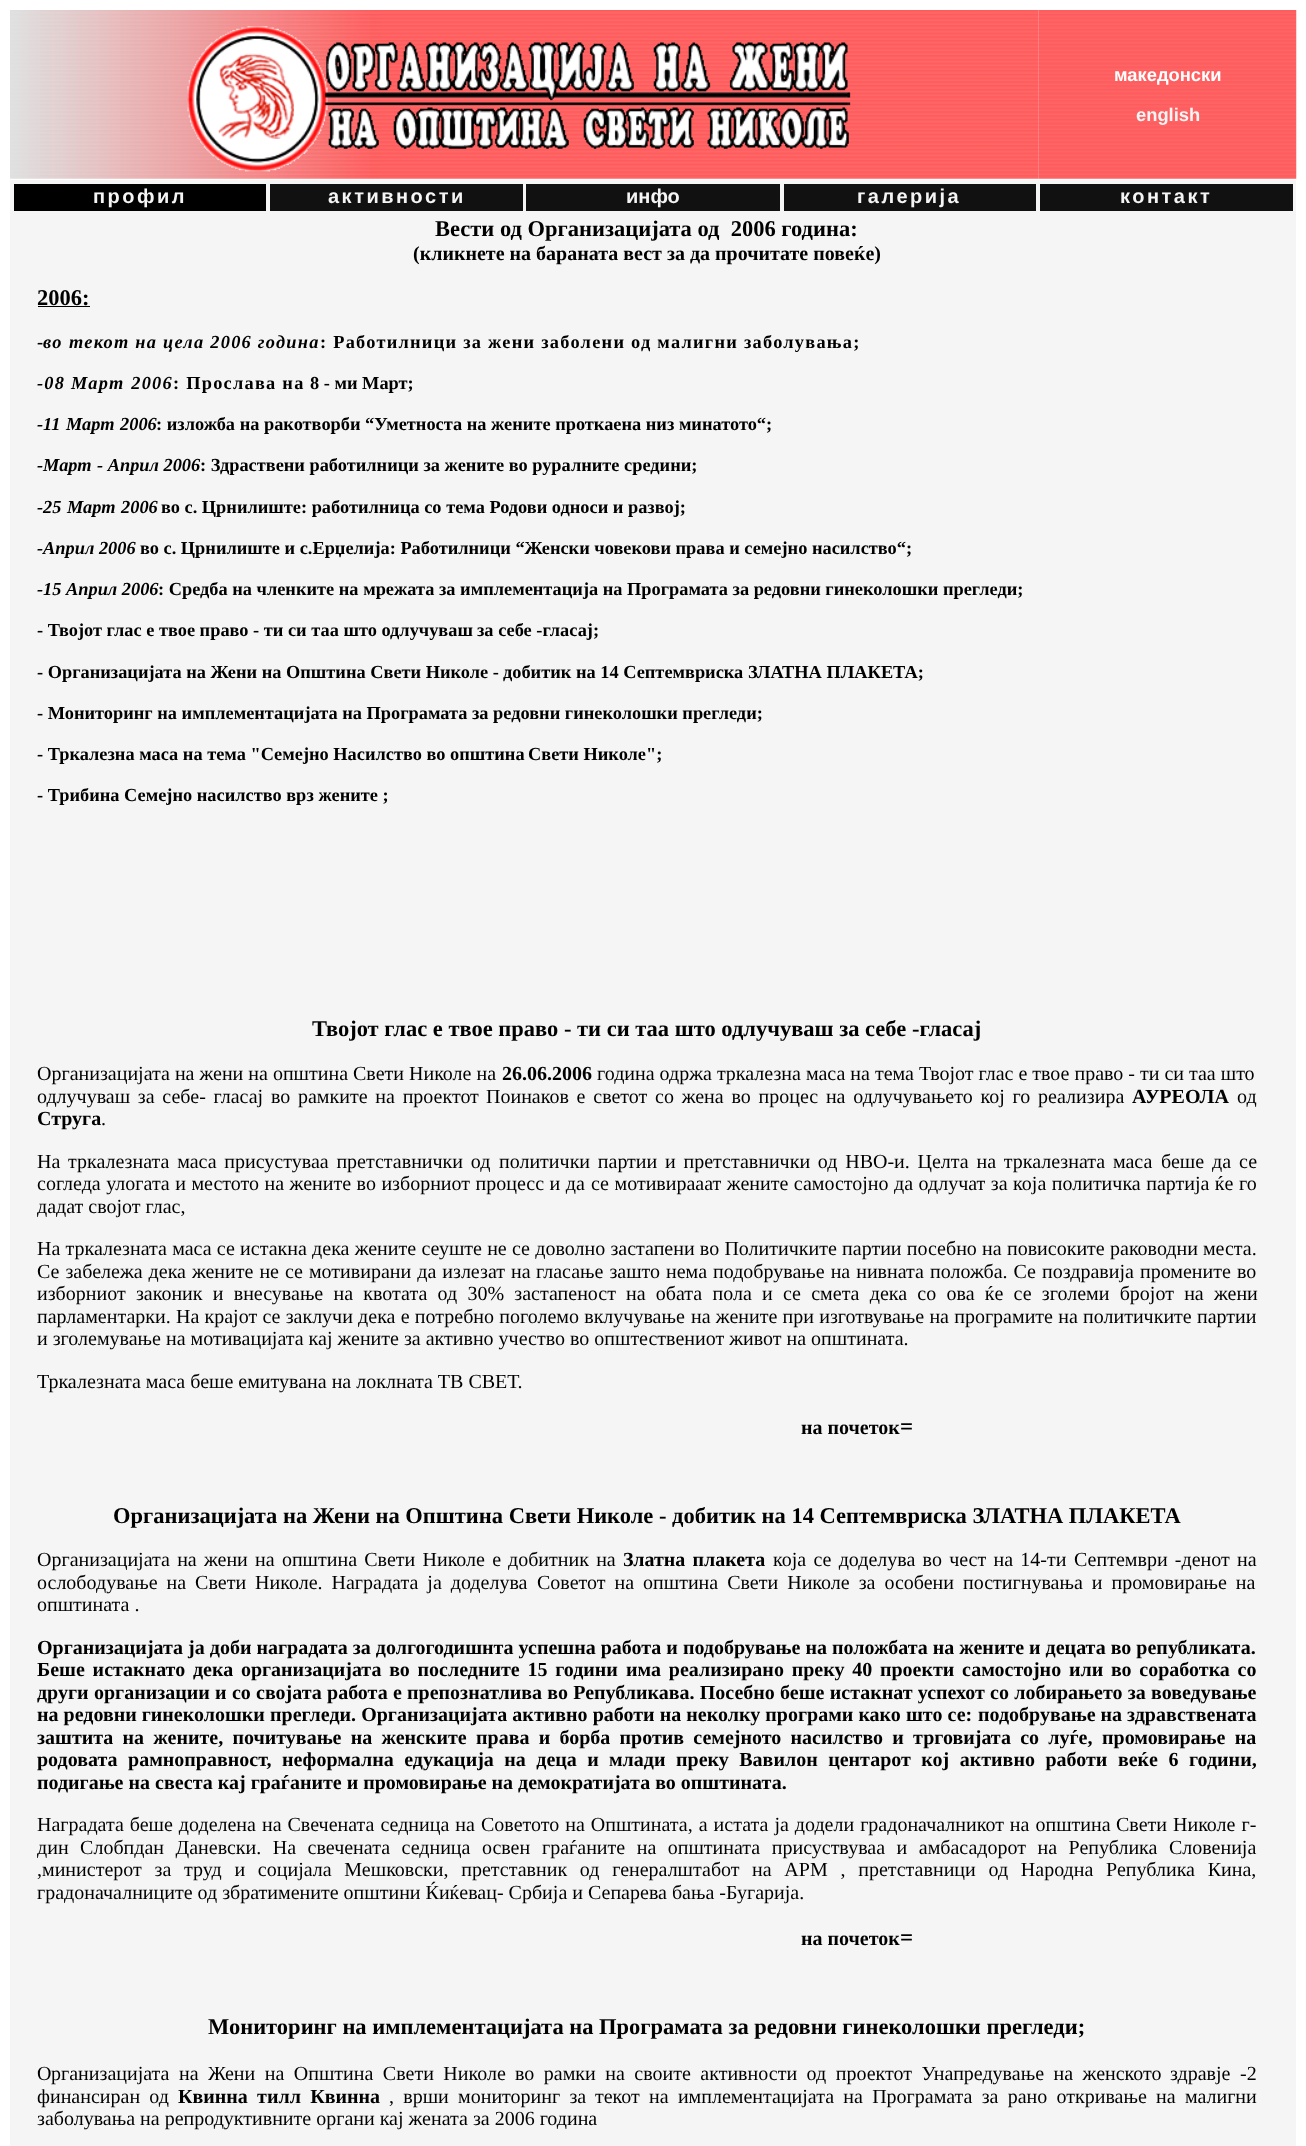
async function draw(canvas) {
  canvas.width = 1306
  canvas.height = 2146
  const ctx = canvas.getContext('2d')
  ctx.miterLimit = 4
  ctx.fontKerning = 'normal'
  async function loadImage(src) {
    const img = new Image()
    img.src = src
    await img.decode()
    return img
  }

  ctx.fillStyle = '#fff'
  ctx.fillRect(0, 0, 1306, 2146)
  ctx.drawImage(await loadImage('image0.png'), 10, 10, 1029, 169)
  ctx.drawImage(await loadImage('image1.png'), 187, 26, 664, 146)
  ctx.drawImage(await loadImage('image2.png'), 1038, 10, 259, 169)
  ctx.font = 'bold 18.35px Liberation Sans'
  ctx.fillText('македонски', 1114, 81)
  ctx.fillStyle = '#f5f5f5'
  ctx.fillText('english', 1136, 121)
  ctx.fillRect(10, 180, 1286, 1966)
  ctx.fillStyle = '#000'
  ctx.fillRect(14, 184, 252, 27)
  ctx.letterSpacing = '2.5px'
  ctx.font = 'bold 20px Liberation Sans'
  ctx.fillStyle = '#f5f5f5'
  ctx.fillText('профил', 93, 203)
  ctx.fillStyle = '#111'
  ctx.fillRect(270, 184, 253, 27)
  ctx.fillStyle = '#f5f5f5'
  ctx.fillText('активности', 328, 203)
  ctx.fillStyle = '#111'
  ctx.fillRect(526, 184, 254, 27)
  ctx.letterSpacing = '0px'
  ctx.fillStyle = '#f5f5f5'
  ctx.fillText('инфо', 626, 203)
  ctx.fillStyle = '#111'
  ctx.fillRect(784, 184, 252, 27)
  ctx.letterSpacing = '2.5px'
  ctx.fillStyle = '#f5f5f5'
  ctx.fillText('галерија', 857, 203)
  ctx.fillStyle = '#111'
  ctx.fillRect(1040, 184, 253, 27)
  ctx.fillStyle = '#f5f5f5'
  ctx.fillText('контакт', 1120, 203)
  ctx.letterSpacing = '0px'
  ctx.font = 'bold 22.5px Liberation Serif'
  ctx.fillStyle = '#000'
  ctx.fillText('Вести од Организацијата од  2006 година:', 435, 236)
  ctx.font = 'bold 20px Liberation Serif'
  ctx.fillText('(кликнете на бараната вест за да прочитате повеќе)', 413, 260)
  ctx.font = 'bold 22.5px Liberation Serif'
  ctx.fillText('2006:', 37, 305)
  ctx.fillRect(38, 306, 52, 1)
  ctx.font = 'bold 18.35px Liberation Serif'
  ctx.fillText('-', 37, 348)
  ctx.letterSpacing = '1.25px'
  ctx.font = 'italic bold 18.35px Liberation Serif'
  ctx.fillText('во', 43, 348)
  ctx.fillText('текот на цела 2006 година', 69, 348)
  ctx.font = 'bold 18.35px Liberation Serif'
  ctx.fillText(': Работилници за жени заболени од малигни заболувања;', 320, 348)
  ctx.font = 'italic bold 18.35px Liberation Serif'
  ctx.fillText('-08', 37, 389)
  ctx.wordSpacing = '1px'
  ctx.fillText('Март 2006', 71, 389)
  ctx.wordSpacing = '0px'
  ctx.font = 'bold 18.35px Liberation Serif'
  ctx.fillText(': Прослава на', 173, 389)
  ctx.letterSpacing = '0px'
  ctx.fillText('8 - ми Март;', 310, 389)
  ctx.wordSpacing = '1px'
  ctx.font = 'italic bold 18.35px Liberation Serif'
  ctx.fillText('-11 Март 2006', 37, 430)
  ctx.wordSpacing = '0px'
  ctx.font = 'bold 18.35px Liberation Serif'
  ctx.fillText(': изложба на ракотворби “Уметноста на жените проткаена низ минатото“;', 156, 430)
  ctx.font = 'italic bold 18.35px Liberation Serif'
  ctx.fillText('-Март', 37, 471)
  ctx.fillText('- Април 2006', 97, 471)
  ctx.font = 'bold 18.35px Liberation Serif'
  ctx.fillText(': Здраствени работилници за жените во руралните средини;', 200, 471)
  ctx.wordSpacing = '1px'
  ctx.font = 'italic bold 18.35px Liberation Serif'
  ctx.fillText('-25 Март 2006', 37, 513)
  ctx.wordSpacing = '0px'
  ctx.font = 'bold 18.35px Liberation Serif'
  ctx.fillText('во с. Црнилиште: работилница со тема Родови односи и развој;', 161, 513)
  ctx.font = 'italic bold 18.35px Liberation Serif'
  ctx.fillText('-Април 2006', 37, 554)
  ctx.font = 'bold 18.35px Liberation Serif'
  ctx.fillText('во с. Црнилиште и с.Ерџелија: Работилници “Женски човекови права и семејно насилство“;', 140, 554)
  ctx.font = 'italic bold 18.35px Liberation Serif'
  ctx.fillText('-15 Април 2006', 37, 595)
  ctx.font = 'bold 18.35px Liberation Serif'
  ctx.fillText(': Средба на членките на мрежата за имплементација на Програмата за редовни гинеколошки прегледи;', 158, 595)
  ctx.fillText('- Твојот глас е твое право - ти си таа што одлучуваш', 37, 636)
  ctx.fillText('за себе -гласај;', 477, 636)
  ctx.fillText('- Организацијата на Жени на Општина Свети Николе -', 37, 678)
  ctx.fillText('добитик на 14 Септемвриска ЗЛАТНА ПЛАКЕТА;', 503, 678)
  ctx.fillText('- Мониторинг на имплементацијата на Програмата за редовни гинеколошки прегледи;', 37, 719)
  ctx.fillText('- Тркалезна маса на тема "Семејно Насилство во општина', 37, 760)
  ctx.fillText('Свети Николе";', 528, 760)
  ctx.fillText('- Трибина Семејно насилство врз жените ;', 37, 801)
  ctx.font = 'bold 22.5px Liberation Serif'
  ctx.fillText('Твојот глас е твое право - ти си таа што одлучуваш за себе -гласај', 312, 1036)
  ctx.font = '20px Liberation Serif'
  ctx.fillText('Организацијата на жени на општина Свети Николе на', 37, 1080)
  ctx.font = 'bold 20px Liberation Serif'
  ctx.fillText('26.06.2006', 502, 1080)
  ctx.font = '20px Liberation Serif'
  ctx.fillText('година одржа тркалезна маса на тема Твојот глас е твое право - ти си таа што', 597, 1080)
  ctx.wordSpacing = '2.75px'
  ctx.fillText('одлучуваш за себе- гласај во рамките на проектот', 37, 1103)
  ctx.fillText('Поинаков е светот со жена во процес на одлучувањето кој го реализира', 486, 1103)
  ctx.wordSpacing = '0px'
  ctx.font = 'bold 20px Liberation Serif'
  ctx.fillText('АУРЕОЛА', 1132, 1103)
  ctx.font = '20px Liberation Serif'
  ctx.fillText('од', 1237, 1103)
  ctx.font = 'bold 20px Liberation Serif'
  ctx.fillText('Струга', 37, 1125)
  ctx.font = '20px Liberation Serif'
  ctx.fillText('.', 101, 1125)
  ctx.wordSpacing = '2.75px'
  ctx.fillText('На тркалезната маса присустуваа претставнички од', 37, 1168)
  ctx.fillText('политички партии и претставнички од НВО-и. Целта на тркалезната маса', 499, 1168)
  ctx.wordSpacing = '3px'
  ctx.fillText('беше да се', 1161, 1168)
  ctx.wordSpacing = '0.5px'
  ctx.fillText('согледа улогата и местото на жените во изборниот процесс и да', 37, 1190)
  ctx.fillText('се мотивирааат жените самостојно да одлучат за која политичка партија ќе', 591, 1190)
  ctx.wordSpacing = '0px'
  ctx.fillText('го', 1239, 1190)
  ctx.fillText('дадат својот глас,', 37, 1213)
  ctx.wordSpacing = '0.25px'
  ctx.fillText('На тркалезната маса се истакна дека жените сеуште не се доволно застапени во Политичките партии посебно на повисоките', 37, 1255)
  ctx.wordSpacing = '0px'
  ctx.fillText('раководни места.', 1110, 1255)
  ctx.wordSpacing = '1px'
  ctx.fillText('Се забележа дека жените не се мотивирани да излезат на', 37, 1278)
  ctx.fillText('гласање зашто нема подобрување на нивната положба. Се поздравија', 536, 1278)
  ctx.fillText('промените во', 1140, 1278)
  ctx.wordSpacing = '5.25px'
  ctx.fillText('изборниот законик и внесување на квотата од 30% застапеност', 37, 1300)
  ctx.fillText('на обата пола и се смета дека со ова ќе се зголеми бројот на жени', 626, 1300)
  ctx.wordSpacing = '0.25px'
  ctx.fillText('парламентарки. На крајот се заклучи дека е потребно поголемо вклучување', 37, 1323)
  ctx.fillText('на жените при изготвување на програмите на политичките партии', 691, 1323)
  ctx.wordSpacing = '0px'
  ctx.fillText('и зголемување на мотивацијата кај жените за активно учество во општествениот живот на општината.', 37, 1345)
  ctx.fillText('Тркалезната маса беше емитувана на локлната ТВ СВЕТ.', 37, 1388)
  ctx.font = 'bold 20px Liberation Serif'
  ctx.fillText('на почеток', 801, 1434)
  ctx.font = 'bold 23px Liberation Serif'
  ctx.fillText('=', 900, 1434)
  ctx.font = 'bold 22.5px Liberation Serif'
  ctx.fillText('Организацијата на Жени на Општина Свети Николе - добитик на 14 Септемвриска ЗЛАТНА ПЛАКЕТА', 113, 1523)
  ctx.wordSpacing = '2.25px'
  ctx.font = '20px Liberation Serif'
  ctx.fillText('Организацијата на жени на општина Свети Николе е', 37, 1566)
  ctx.fillText('добитник на', 508, 1566)
  ctx.font = 'bold 20px Liberation Serif'
  ctx.fillText('Златна плакета', 623, 1566)
  ctx.font = '20px Liberation Serif'
  ctx.fillText('која се доделува во чест на 14-ти', 773, 1566)
  ctx.fillText('Септември -денот на', 1074, 1566)
  ctx.wordSpacing = '4px'
  ctx.fillText('ослободување на Свети Николе. Наградата ја доделува', 37, 1589)
  ctx.fillText('Советот на општина Свети Николе за особени постигнувања и промовирање на', 537, 1589)
  ctx.wordSpacing = '0px'
  ctx.fillText('општината .', 37, 1611)
  ctx.font = 'bold 20px Liberation Serif'
  ctx.fillText('Организацијата ја доби наградата за долгогодишнта успешна работа и подобрување на положбата на жените и децата во републиката.', 37, 1654)
  ctx.wordSpacing = '2.75px'
  ctx.fillText('Беше истакнато дека организацијата во последните 15 години', 37, 1676)
  ctx.fillText('има реализирано преку 40 проекти самостојно или во соработка со', 626, 1676)
  ctx.wordSpacing = '0px'
  ctx.fillText('други', 37, 1699)
  ctx.wordSpacing = '0.25px'
  ctx.fillText('организации и со својата работа е препознатлива во Републикава. Посебно беше истакнат успехот со лобирањето за воведување', 94, 1699)
  ctx.wordSpacing = '0px'
  ctx.fillText('на редовни гинеколошки', 37, 1721)
  ctx.wordSpacing = '0.1px'
  ctx.fillText('прегледи. Организацијата активно работи на неколку програми како што се:', 270, 1721)
  ctx.wordSpacing = '0px'
  ctx.fillText('подобрување на здравствената', 978, 1721)
  ctx.wordSpacing = '4.25px'
  ctx.fillText('заштита на жените, почитување на женските', 37, 1744)
  ctx.fillText('права и борба против семејното насилство и трговијата со луѓе,', 476, 1744)
  ctx.fillText('промовирање на', 1102, 1744)
  ctx.wordSpacing = '5.5px'
  ctx.fillText('родовата рамноправност, неформална едукација на деца и', 37, 1766)
  ctx.fillText('млади преку Вавилон центарот кој активно работи веќе 6 години,', 609, 1766)
  ctx.wordSpacing = '0px'
  ctx.fillText('подигање на свеста кај граѓаните и промовирање на демократијата во општината.', 37, 1789)
  ctx.wordSpacing = '1px'
  ctx.font = '20px Liberation Serif'
  ctx.fillText('Наградата беше доделена на Свечената седница на', 37, 1831)
  ctx.fillText('Советото на Општината, а истата ја додели градоначалникот на општина', 481, 1831)
  ctx.fillText('Свети Николе г-', 1116, 1831)
  ctx.wordSpacing = '6.5px'
  ctx.fillText('дин Слобпдан Даневски. На свечената седница освен', 37, 1854)
  ctx.fillText('граѓаните на општината присуствуваа и амбасадорот на Република Словенија', 542, 1854)
  ctx.wordSpacing = '7.75px'
  ctx.fillText(',министерот за труд и социјала Мешковски, претставник од генералштабот', 37, 1876)
  ctx.fillText('на АРМ , претставници од Народна Република Кина,', 752, 1876)
  ctx.wordSpacing = '0px'
  ctx.fillText('градоначалниците од збратимените општини Ќиќевац- Србија и Сепарева бања -Бугарија.', 37, 1899)
  ctx.font = 'bold 20px Liberation Serif'
  ctx.fillText('на почеток', 801, 1945)
  ctx.font = 'bold 23px Liberation Serif'
  ctx.fillText('=', 900, 1945)
  ctx.font = 'bold 22.5px Liberation Serif'
  ctx.fillText('Мониторинг на имплементацијата на Програмата за редовни гинеколошки прегледи;', 208, 2034)
  ctx.font = '20px Liberation Serif'
  ctx.fillText('O', 37, 2080)
  ctx.wordSpacing = '4.5px'
  ctx.fillText('рганизацијата на Жени на Општина Свети Николе', 51, 2080)
  ctx.fillText('во рамки на своите активности од проектот Унапредување на женското', 515, 2080)
  ctx.fillText('здравје -2', 1170, 2080)
  ctx.wordSpacing = '4.25px'
  ctx.fillText('финансиран од', 37, 2103)
  ctx.font = 'bold 20px Liberation Serif'
  ctx.fillText('Квинна тилл Квинна', 178, 2103)
  ctx.font = '20px Liberation Serif'
  ctx.fillText(', врши мониторинг за', 389, 2103)
  ctx.fillText('текот на имплементацијата на Програмата за рано откривање на малигни', 595, 2103)
  ctx.wordSpacing = '0px'
  ctx.fillText('заболувања на репродуктивните органи кај жената за 2006 година', 37, 2125)
}

draw(document.querySelector('canvas'))
